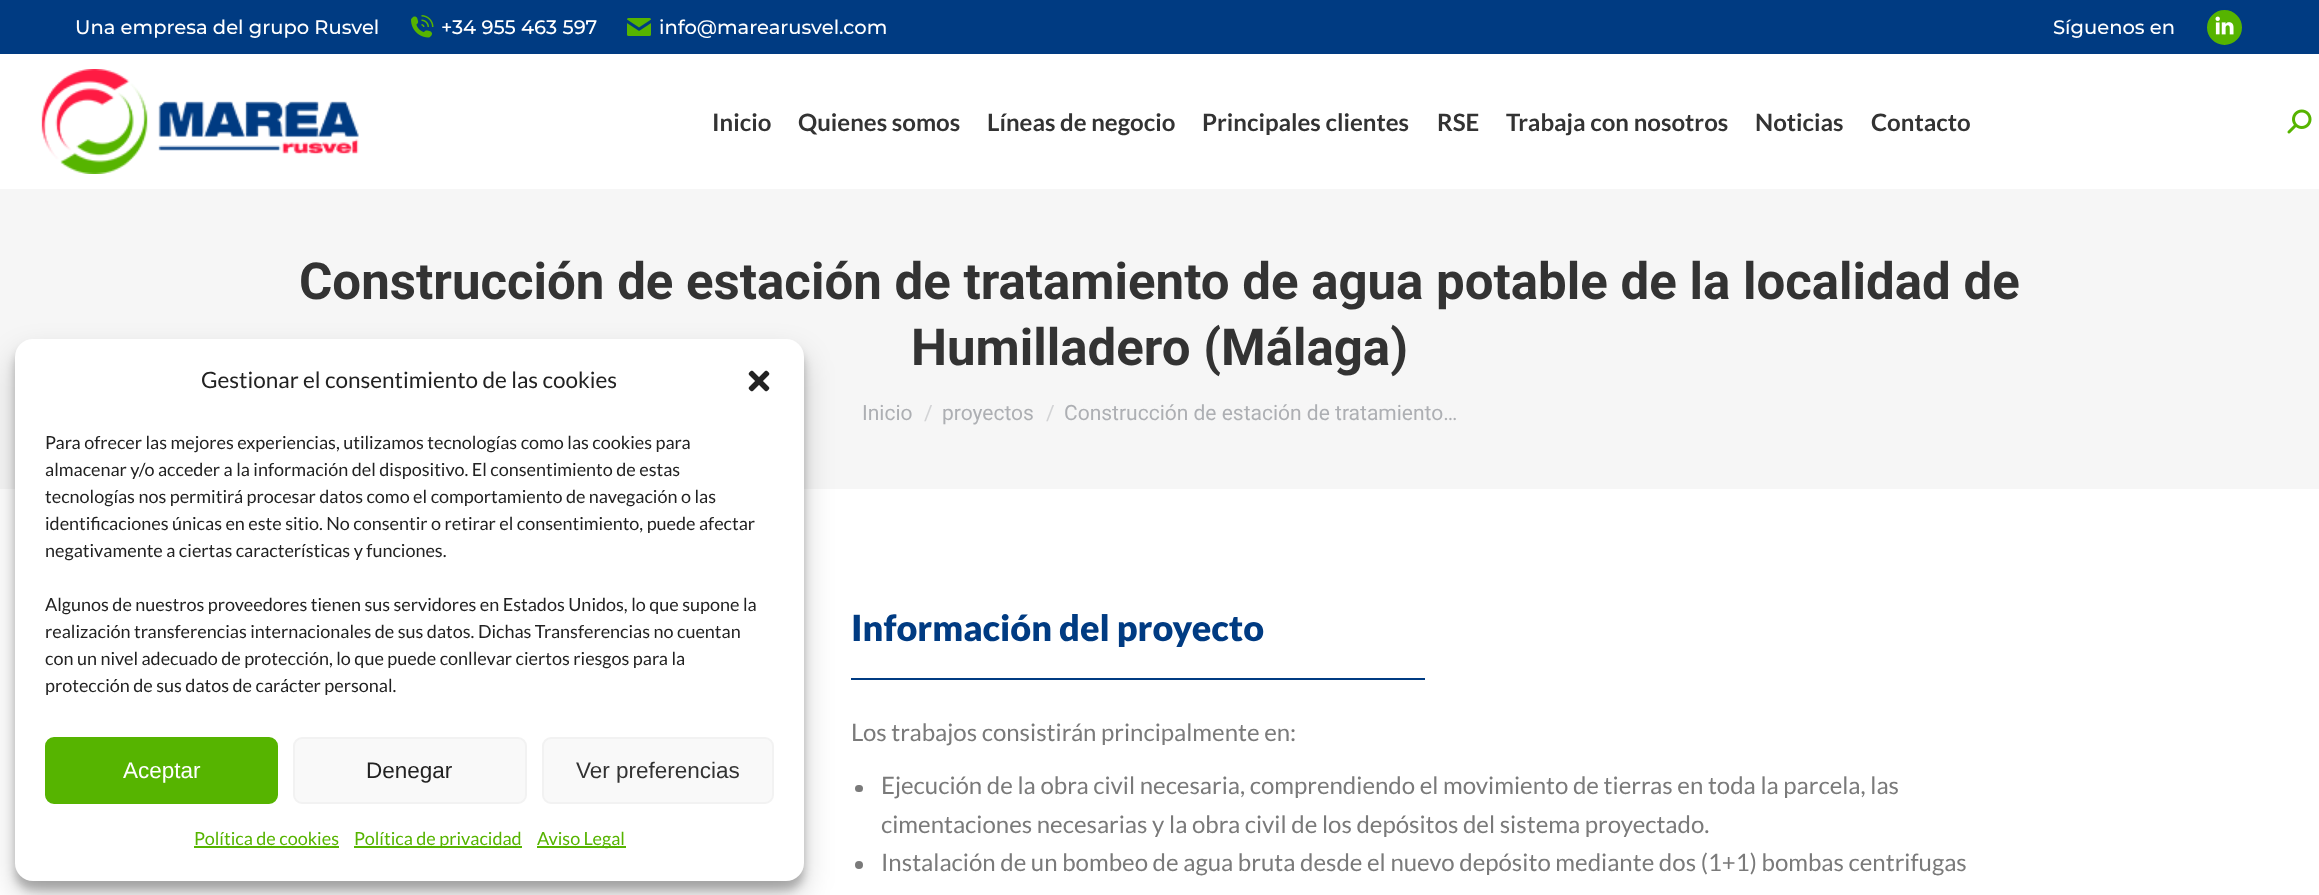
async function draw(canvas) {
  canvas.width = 2319
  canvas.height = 895
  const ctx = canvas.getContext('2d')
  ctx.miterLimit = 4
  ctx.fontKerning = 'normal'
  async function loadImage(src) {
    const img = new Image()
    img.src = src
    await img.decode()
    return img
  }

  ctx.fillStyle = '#fff'
  ctx.fillRect(0, 0, 2319, 895)
  ctx.fillStyle = '#003b82'
  ctx.fillRect(0, 0, 2319, 54)
  ctx.font = '500 19.5px Montserrat'
  ctx.fillStyle = '#fff'
  ctx.fillText('Una empresa del grupo Rusvel', 75, 34)
  ctx.drawImage(await loadImage('image0.png'), 411, 15, 23, 23)
  ctx.fillText('+34 955 463 597', 441, 34)
  ctx.drawImage(await loadImage('image1.png'), 627, 18, 24, 18)
  ctx.fillText('info@marearusvel.com', 659, 34)
  ctx.fillText('Síguenos en', 2053, 34)
  ctx.fillStyle = '#56b400'
  ctx.beginPath()
  ctx.arc(2224.5, 27.5, 18.5, 0, 2 * Math.PI)
  ctx.fill()
  ctx.strokeStyle = '#003b82'
  ctx.lineWidth = 2
  ctx.stroke()
  ctx.drawImage(await loadImage('image2.png'), 2215, 16, 19, 19)
  ctx.drawImage(await loadImage('image3.png'), 41, 69, 318, 105)
  ctx.font = 'bold 24px Lato'
  ctx.fillStyle = '#333'
  ctx.fillText('Inicio', 712, 131)
  ctx.fillText('Quienes somos', 798, 131)
  ctx.fillText('Líneas de negocio', 987, 131)
  ctx.fillText('Principales clientes', 1202, 131)
  ctx.fillText('RSE', 1437, 131)
  ctx.fillText('Trabaja con nosotros', 1506, 131)
  ctx.fillText('Noticias', 1755, 131)
  ctx.fillText('Contacto', 1871, 131)
  ctx.drawImage(await loadImage('image4.png'), 2287, 109, 25, 25)
  ctx.fillStyle = '#f6f6f6'
  ctx.fillRect(0, 189, 2319, 300)
  ctx.font = 'bold 51px Roboto'
  ctx.fillStyle = '#333'
  ctx.fillText('Construcción de estación de tratamiento de agua potable de la localidad de', 299, 299)
  ctx.fillText('Humilladero (Málaga)', 911, 365)
  ctx.font = '21px Roboto'
  ctx.fillStyle = '#adafb3'
  ctx.fillText('Inicio', 862, 420)
  ctx.fillStyle = '#d2d3d5'
  ctx.fillText('/', 924, 420)
  ctx.fillStyle = '#adafb3'
  ctx.fillText('proyectos', 942, 420)
  ctx.fillStyle = '#d2d3d5'
  ctx.fillText('/', 1046, 420)
  ctx.fillStyle = '#adafb3'
  ctx.fillText('Construcción de estación de tratamiento…', 1064, 420)
  ctx.font = '900 36px Lato'
  ctx.fillStyle = '#003b82'
  ctx.fillText('Información del proyecto', 851, 641)
  ctx.fillRect(851, 678, 574, 2)
  ctx.font = '24px Lato'
  ctx.fillStyle = '#7a7a7a'
  ctx.fillText('Los trabajos consistirán principalmente en:', 851, 741)
  ctx.beginPath()
  ctx.roundRect(855, 785, 8, 7, 3.5)
  ctx.fill()
  ctx.fillText('Ejecución de la obra civil necesaria, comprendiendo el movimiento de tierras en toda la parcela, las', 881, 794)
  ctx.fillText('cimentaciones necesarias y la obra civil de los depósitos del sistema proyectado.', 881, 833)
  ctx.beginPath()
  ctx.arc(859, 865, 4, 0, 2 * Math.PI)
  ctx.fill()
  ctx.fillText('Instalación de un bombeo de agua bruta desde el nuevo depósito mediante dos (1+1) bombas centrifugas', 881, 871)
  ctx.fillStyle = '#0000003b'
  ctx.filter = 'blur(4.5px)'
  ctx.beginPath()
  ctx.roundRect(15, 348, 789, 542, 18)
  ctx.fill()
  ctx.filter = 'none'
  ctx.fillStyle = '#00000030'
  ctx.filter = 'blur(15px)'
  ctx.beginPath()
  ctx.roundRect(15, 354, 789, 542, 18)
  ctx.fill()
  ctx.filter = 'none'
  ctx.fillStyle = '#fff'
  ctx.beginPath()
  ctx.roundRect(15, 339, 789, 542, 18)
  ctx.fill()
  ctx.font = '22.5px Lato'
  ctx.fillStyle = '#222'
  ctx.fillText('Gestionar el consentimiento de las cookies', 201, 388)
  ctx.drawImage(await loadImage('image5.png'), 748, 370, 22, 22)
  ctx.font = '18px Lato'
  ctx.fillText('Para ofrecer las mejores experiencias, utilizamos tecnologías como las cookies para', 45, 449)
  ctx.fillText('almacenar y/o acceder a la información del dispositivo. El consentimiento de estas', 45, 476)
  ctx.fillText('tecnologías nos permitirá procesar datos como el comportamiento de navegación o las', 45, 503)
  ctx.fillText('identificaciones únicas en este sitio. No consentir o retirar el consentimiento, puede afectar', 45, 530)
  ctx.fillText('negativamente a ciertas características y funciones.', 45, 557)
  ctx.fillText('Algunos de nuestros proveedores tienen sus servidores en Estados Unidos, lo que supone la', 45, 611)
  ctx.fillText('realización transferencias internacionales de sus datos. Dichas Transferencias no cuentan', 45, 638)
  ctx.fillText('con un nivel adecuado de protección, lo que puede conllevar ciertos riesgos para la', 45, 665)
  ctx.fillText('protección de sus datos de carácter personal.', 45, 692)
  ctx.fillStyle = '#56b400'
  ctx.beginPath()
  ctx.roundRect(46, 738, 231, 65, 8)
  ctx.fill()
  ctx.strokeStyle = '#56b400'
  ctx.stroke()
  ctx.font = '22.5px Liberation Sans'
  ctx.fillStyle = '#fff'
  ctx.fillText('Aceptar', 123, 778)
  ctx.fillStyle = '#f9f9f9'
  ctx.beginPath()
  ctx.roundRect(294, 738, 232, 65, 8)
  ctx.fill()
  ctx.strokeStyle = '#f2f2f2'
  ctx.stroke()
  ctx.fillStyle = '#222'
  ctx.fillText('Denegar', 366, 778)
  ctx.fillStyle = '#f9f9f9'
  ctx.beginPath()
  ctx.roundRect(543, 738, 230, 65, 8)
  ctx.fill()
  ctx.stroke()
  ctx.fillStyle = '#333'
  ctx.fillText('Ver preferencias', 576, 778)
  ctx.font = '18px Lato'
  ctx.fillStyle = '#56b400'
  ctx.fillText('Política de cookies', 194, 845)
  ctx.fillRect(194, 846, 145, 2)
  ctx.fillRect(354, 846, 168, 2)
  ctx.fillText('Política de privacidad', 354, 845)
  ctx.fillRect(537, 846, 89, 2)
  ctx.fillText('Aviso Legal', 537, 845)
}

draw(document.querySelector('canvas'))
